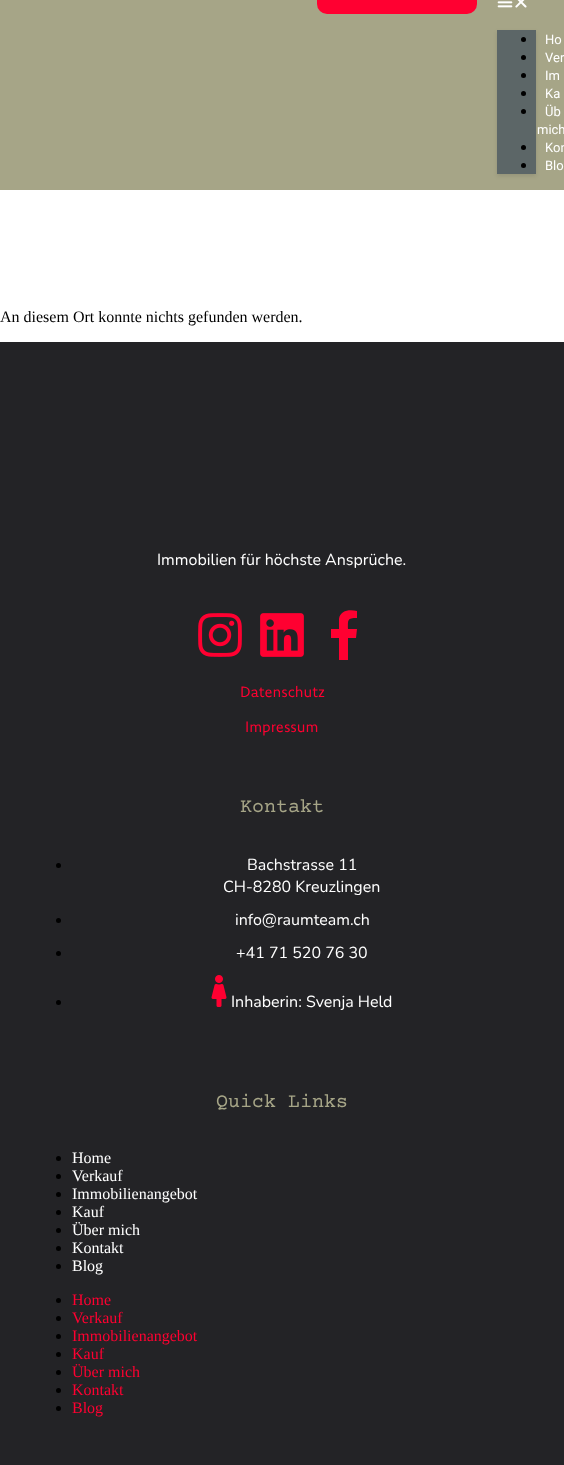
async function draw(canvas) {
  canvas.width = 564
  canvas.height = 1465
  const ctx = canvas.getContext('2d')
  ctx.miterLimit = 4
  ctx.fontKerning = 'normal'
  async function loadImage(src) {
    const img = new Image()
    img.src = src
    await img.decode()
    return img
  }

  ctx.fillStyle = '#fff'
  ctx.fillRect(0, 0, 564, 1465)
  ctx.fillStyle = '#a6a587'
  ctx.fillRect(0, 0, 564, 190)
  ctx.fillStyle = '#ff0031'
  ctx.beginPath()
  ctx.roundRect(317, -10, 160, 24, 10)
  ctx.fill()
  ctx.drawImage(await loadImage('image0.png'), 497, 1, 16, 7)
  ctx.drawImage(await loadImage('image1.png'), 515, 0, 12, 8)
  ctx.fillStyle = '#0000001a'
  ctx.filter = 'blur(2px)'
  ctx.beginPath()
  ctx.rect(497, 32, 39, 144)
  ctx.fill()
  ctx.filter = 'none'
  ctx.fillStyle = '#5c6667'
  ctx.fillRect(497, 30, 39, 144)
  ctx.fillStyle = '#000'
  ctx.beginPath()
  ctx.arc(523.5, 39.5, 2.5, 0, 2 * Math.PI)
  ctx.fill()
  ctx.font = '13px Roboto'
  ctx.fillStyle = '#fff'
  ctx.fillText('Ho', 545, 44)
  ctx.fillStyle = '#000'
  ctx.beginPath()
  ctx.arc(523.5, 57.5, 2.5, 0, 2 * Math.PI)
  ctx.fill()
  ctx.fillStyle = '#fff'
  ctx.fillText('Ver', 545, 62)
  ctx.fillStyle = '#000'
  ctx.beginPath()
  ctx.arc(523.5, 75.5, 2.5, 0, 2 * Math.PI)
  ctx.fill()
  ctx.fillStyle = '#fff'
  ctx.fillText('Im', 545, 80)
  ctx.fillStyle = '#000'
  ctx.beginPath()
  ctx.arc(523.5, 93.5, 2.5, 0, 2 * Math.PI)
  ctx.fill()
  ctx.fillStyle = '#fff'
  ctx.fillText('Ka', 545, 98)
  ctx.fillStyle = '#000'
  ctx.beginPath()
  ctx.arc(523.5, 111.5, 2.5, 0, 2 * Math.PI)
  ctx.fill()
  ctx.fillStyle = '#fff'
  ctx.fillText('Üb', 545, 116)
  ctx.fillText('mich', 537, 134)
  ctx.fillStyle = '#000'
  ctx.beginPath()
  ctx.arc(523.5, 147.5, 2.5, 0, 2 * Math.PI)
  ctx.fill()
  ctx.fillStyle = '#fff'
  ctx.fillText('Kon', 545, 152)
  ctx.fillStyle = '#000'
  ctx.beginPath()
  ctx.arc(523.5, 165.5, 2.5, 0, 2 * Math.PI)
  ctx.fill()
  ctx.fillStyle = '#fff'
  ctx.fillText('Blo', 545, 170)
  ctx.font = '16px Liberation Serif'
  ctx.fillStyle = '#000'
  ctx.fillText('An diesem Ort konnte nichts gefunden werden.', 0, 322)
  ctx.fillStyle = '#232326'
  ctx.fillRect(0, 342, 564, 1123)
  ctx.font = '16px Nunito'
  ctx.fillStyle = '#fff'
  ctx.fillText('Immobilien für höchste Ansprüche.', 157, 565)
  ctx.drawImage(await loadImage('image2.png'), 198, 613, 44, 44)
  ctx.drawImage(await loadImage('image3.png'), 260, 613, 44, 44)
  ctx.fillStyle = '#ff0031'
  ctx.beginPath()
  ctx.moveTo(356, 638)
  ctx.lineTo(357, 629)
  ctx.lineTo(348, 629)
  ctx.bezierCurveTo(348, 620, 347, 618, 357, 618)
  ctx.lineTo(357, 611)
  ctx.bezierCurveTo(350, 609, 340, 610, 339, 619)
  ctx.lineTo(339, 629)
  ctx.lineTo(331, 629)
  ctx.lineTo(331, 638)
  ctx.lineTo(339, 638)
  ctx.lineTo(339, 660)
  ctx.lineTo(348, 660)
  ctx.lineTo(348, 638)
  ctx.closePath()
  ctx.fill()
  ctx.font = '15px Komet'
  ctx.fillText('Datenschutz', 240, 697)
  ctx.fillText('Impressum', 245, 732)
  ctx.font = '20px Courier Prime'
  ctx.fillStyle = '#a6a587'
  ctx.fillText('Kontakt', 240, 812)
  ctx.fillStyle = '#000'
  ctx.beginPath()
  ctx.arc(58.5, 865.5, 2.5, 0, 2 * Math.PI)
  ctx.fill()
  ctx.font = '16px Nunito'
  ctx.fillStyle = '#fff'
  ctx.fillText('Bachstrasse 11', 247, 870)
  ctx.fillText('CH-8280 Kreuzlingen', 223, 892)
  ctx.fillStyle = '#000'
  ctx.beginPath()
  ctx.arc(58.5, 920.5, 2.5, 0, 2 * Math.PI)
  ctx.fill()
  ctx.fillStyle = '#fff'
  ctx.fillText('info@raumteam.ch', 235, 925)
  ctx.fillStyle = '#000'
  ctx.beginPath()
  ctx.arc(58.5, 953.5, 2.5, 0, 2 * Math.PI)
  ctx.fill()
  ctx.fillStyle = '#fff'
  ctx.fillText('+41 71 520 76 30', 236, 958)
  ctx.fillStyle = '#000'
  ctx.beginPath()
  ctx.arc(58.5, 1002.5, 2.5, 0, 2 * Math.PI)
  ctx.fill()
  ctx.drawImage(await loadImage('image4.png'), 211, 975, 16, 32)
  ctx.fillStyle = '#fff'
  ctx.fillText('Inhaberin: Svenja Held', 231, 1007)
  ctx.font = '20px Courier Prime'
  ctx.fillStyle = '#a6a587'
  ctx.fillText('Quick Links', 216, 1107)
  ctx.fillStyle = '#000'
  ctx.beginPath()
  ctx.arc(58.5, 1158.5, 2.5, 0, 2 * Math.PI)
  ctx.fill()
  ctx.font = '16px Liberation Serif'
  ctx.fillStyle = '#fff'
  ctx.fillText('Home', 72, 1163)
  ctx.fillStyle = '#000'
  ctx.beginPath()
  ctx.arc(58.5, 1176.5, 2.5, 0, 2 * Math.PI)
  ctx.fill()
  ctx.fillStyle = '#fff'
  ctx.fillText('Verkauf', 72, 1181)
  ctx.fillStyle = '#000'
  ctx.beginPath()
  ctx.arc(58.5, 1194.5, 2.5, 0, 2 * Math.PI)
  ctx.fill()
  ctx.fillStyle = '#fff'
  ctx.fillText('Immobilienangebot', 72, 1199)
  ctx.fillStyle = '#000'
  ctx.beginPath()
  ctx.arc(58.5, 1212.5, 2.5, 0, 2 * Math.PI)
  ctx.fill()
  ctx.fillStyle = '#fff'
  ctx.fillText('Kauf', 72, 1217)
  ctx.fillStyle = '#000'
  ctx.beginPath()
  ctx.arc(58.5, 1230.5, 2.5, 0, 2 * Math.PI)
  ctx.fill()
  ctx.fillStyle = '#fff'
  ctx.fillText('Über mich', 72, 1235)
  ctx.fillStyle = '#000'
  ctx.beginPath()
  ctx.arc(58.5, 1248.5, 2.5, 0, 2 * Math.PI)
  ctx.fill()
  ctx.fillStyle = '#fff'
  ctx.fillText('Kontakt', 72, 1253)
  ctx.fillStyle = '#000'
  ctx.beginPath()
  ctx.arc(58.5, 1266.5, 2.5, 0, 2 * Math.PI)
  ctx.fill()
  ctx.fillStyle = '#fff'
  ctx.fillText('Blog', 72, 1271)
  ctx.fillStyle = '#000'
  ctx.beginPath()
  ctx.arc(58.5, 1300.5, 2.5, 0, 2 * Math.PI)
  ctx.fill()
  ctx.fillStyle = '#ff0031'
  ctx.fillText('Home', 72, 1305)
  ctx.fillStyle = '#000'
  ctx.beginPath()
  ctx.arc(58.5, 1318.5, 2.5, 0, 2 * Math.PI)
  ctx.fill()
  ctx.fillStyle = '#ff0031'
  ctx.fillText('Verkauf', 72, 1323)
  ctx.fillStyle = '#000'
  ctx.beginPath()
  ctx.arc(58.5, 1336.5, 2.5, 0, 2 * Math.PI)
  ctx.fill()
  ctx.fillStyle = '#ff0031'
  ctx.fillText('Immobilienangebot', 72, 1341)
  ctx.fillStyle = '#000'
  ctx.beginPath()
  ctx.arc(58.5, 1354.5, 2.5, 0, 2 * Math.PI)
  ctx.fill()
  ctx.fillStyle = '#ff0031'
  ctx.fillText('Kauf', 72, 1359)
  ctx.fillStyle = '#000'
  ctx.beginPath()
  ctx.arc(58.5, 1372.5, 2.5, 0, 2 * Math.PI)
  ctx.fill()
  ctx.fillStyle = '#ff0031'
  ctx.fillText('Über mich', 72, 1377)
  ctx.fillStyle = '#000'
  ctx.beginPath()
  ctx.arc(58.5, 1390.5, 2.5, 0, 2 * Math.PI)
  ctx.fill()
  ctx.fillStyle = '#ff0031'
  ctx.fillText('Kontakt', 72, 1395)
  ctx.fillStyle = '#000'
  ctx.beginPath()
  ctx.arc(58.5, 1408.5, 2.5, 0, 2 * Math.PI)
  ctx.fill()
  ctx.fillStyle = '#ff0031'
  ctx.fillText('Blog', 72, 1413)
}

draw(document.querySelector('canvas'))
